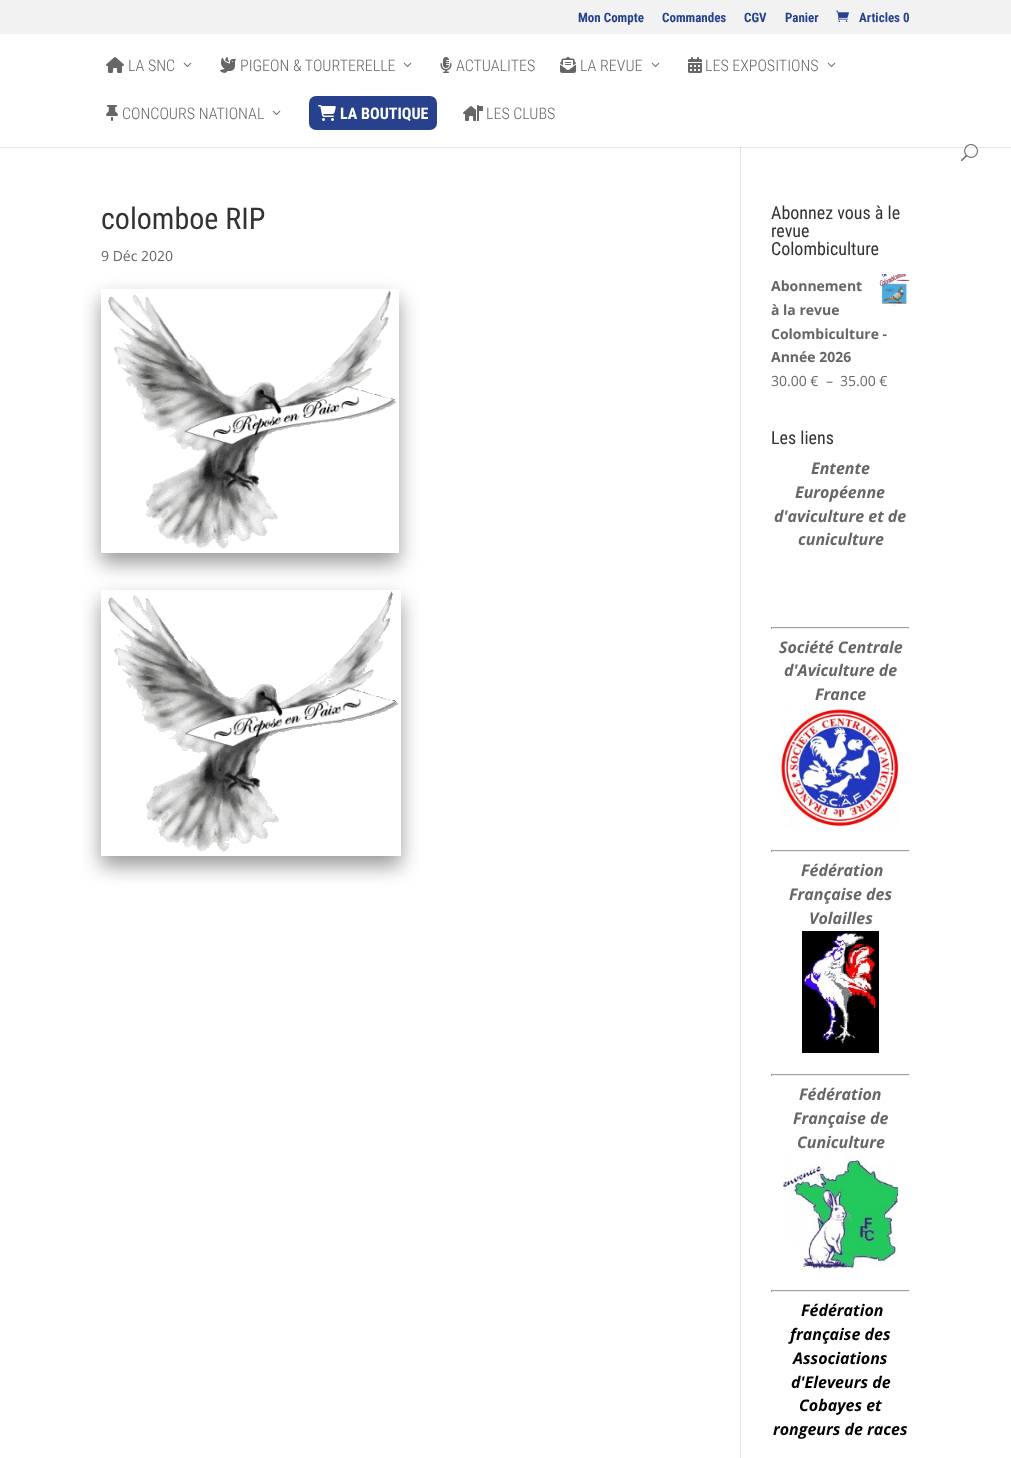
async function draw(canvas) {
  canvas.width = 1011
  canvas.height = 1458
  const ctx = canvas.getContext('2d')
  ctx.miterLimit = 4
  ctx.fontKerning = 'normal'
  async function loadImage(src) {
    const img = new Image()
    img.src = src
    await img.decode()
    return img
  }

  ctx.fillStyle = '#fff'
  ctx.fillRect(0, 0, 1011, 1458)
  ctx.fillStyle = '#e6e6e6'
  ctx.fillRect(0, 147, 1011, 1)
  ctx.fillStyle = '#f2f2f2'
  ctx.fillRect(0, 0, 1011, 34)
  ctx.font = 'bold 13px Roboto Condensed'
  ctx.fillStyle = '#27418c'
  ctx.fillText('Mon Compte', 578, 22)
  ctx.fillText('Commandes', 662, 22)
  ctx.fillText('CGV', 744, 22)
  ctx.fillText('Panier', 785, 22)
  ctx.drawImage(await loadImage('image0.png'), 836, 10, 13, 12)
  ctx.fillText('Articles 0', 859, 22)
  ctx.fillStyle = '#e2e2e2'
  ctx.fillRect(740, 146, 1, 1312)
  ctx.fillStyle = '#fff'
  ctx.fillRect(740, 146, 1, 1)
  ctx.drawImage(await loadImage('image1.png'), 106, 57, 18, 16)
  ctx.font = '300 16px Roboto Condensed'
  ctx.fillStyle = '#666'
  ctx.fillText('LA SNC', 128, 71)
  ctx.drawImage(await loadImage('image2.png'), 183, 62, 9, 5)
  ctx.drawImage(await loadImage('image3.png'), 220, 57, 16, 16)
  ctx.fillText('PIGEON & TOURTERELLE', 240, 71)
  ctx.drawImage(await loadImage('image2.png'), 403, 62, 9, 5)
  ctx.drawImage(await loadImage('image4.png'), 440, 57, 12, 16)
  ctx.fillText('ACTUALITES', 456, 71)
  ctx.drawImage(await loadImage('image5.png'), 560, 57, 16, 16)
  ctx.fillText('LA REVUE', 580, 71)
  ctx.drawImage(await loadImage('image2.png'), 651, 62, 9, 5)
  ctx.drawImage(await loadImage('image6.png'), 688, 57, 14, 16)
  ctx.fillText('LES EXPOSITIONS', 705, 71)
  ctx.drawImage(await loadImage('image2.png'), 827, 62, 9, 5)
  ctx.drawImage(await loadImage('image7.png'), 106, 105, 12, 16)
  ctx.fillText('CONCOURS NATIONAL', 122, 119)
  ctx.drawImage(await loadImage('image2.png'), 272, 110, 9, 5)
  ctx.fillStyle = '#27418c'
  ctx.beginPath()
  ctx.roundRect(309, 96, 128, 34, 7)
  ctx.fill()
  ctx.drawImage(await loadImage('image8.png'), 318, 105, 18, 16)
  ctx.font = 'bold 16px Roboto Condensed'
  ctx.fillStyle = '#fff'
  ctx.fillText('LA BOUTIQUE', 340, 119)
  ctx.drawImage(await loadImage('image9.png'), 463, 105, 20, 16)
  ctx.font = '300 16px Roboto Condensed'
  ctx.fillStyle = '#666'
  ctx.fillText('LES CLUBS', 486, 119)
  ctx.drawImage(await loadImage('image10.png'), 961, 144, 17, 18)
  ctx.fillStyle = '#cbcbcb'
  ctx.fillRect(740, 147, 1, 1)
  ctx.font = '30px Roboto Condensed'
  ctx.fillStyle = '#333'
  ctx.fillText('colomboe RIP', 101, 229)
  ctx.font = '14px Open Sans'
  ctx.fillStyle = '#666'
  ctx.fillText('9 Déc 2020', 101, 261)
  ctx.save()
  ctx.beginPath()
  ctx.moveTo(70, 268)
  ctx.lineTo(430, 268)
  ctx.lineTo(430, 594)
  ctx.lineTo(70, 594)
  ctx.closePath()
  ctx.moveTo(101, 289)
  ctx.lineTo(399, 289)
  ctx.lineTo(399, 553)
  ctx.lineTo(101, 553)
  ctx.closePath()
  ctx.clip('evenodd')
  ctx.fillStyle = '#999'
  ctx.filter = 'blur(10px)'
  ctx.beginPath()
  ctx.rect(101, 299, 298, 264)
  ctx.fill()
  ctx.filter = 'none'
  ctx.restore()
  ctx.drawImage(await loadImage('image11.png'), 108, 290, 289, 259)
  ctx.save()
  ctx.beginPath()
  ctx.moveTo(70, 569)
  ctx.lineTo(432, 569)
  ctx.lineTo(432, 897)
  ctx.lineTo(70, 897)
  ctx.closePath()
  ctx.moveTo(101, 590)
  ctx.lineTo(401, 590)
  ctx.lineTo(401, 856)
  ctx.lineTo(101, 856)
  ctx.closePath()
  ctx.clip('evenodd')
  ctx.fillStyle = '#999'
  ctx.filter = 'blur(10px)'
  ctx.beginPath()
  ctx.rect(101, 600, 300, 266)
  ctx.fill()
  ctx.filter = 'none'
  ctx.restore()
  ctx.drawImage(await loadImage('image12.png'), 108, 591, 290, 261)
  ctx.font = '18px Roboto Condensed'
  ctx.fillStyle = '#333'
  ctx.fillText('Abonnez vous à le', 771, 219)
  ctx.fillText('revue', 771, 237)
  ctx.fillText('Colombiculture', 771, 255)
  ctx.font = 'bold 14px Open Sans'
  ctx.fillStyle = '#666'
  ctx.fillText('Abonnement', 771, 291)
  ctx.drawImage(await loadImage('image13.png'), 879, 274, 31, 32)
  ctx.fillText('à la revue', 771, 315)
  ctx.fillText('Colombiculture -', 771, 339)
  ctx.fillText('Année 2026', 771, 362)
  ctx.font = '14px Open Sans'
  ctx.fillText('30.00 €', 771, 386)
  ctx.fillText('–', 826, 386)
  ctx.fillText('35.00 €', 840, 386)
  ctx.font = '18px Roboto Condensed'
  ctx.fillStyle = '#333'
  ctx.fillText('Les liens', 771, 444)
  ctx.font = 'italic bold 16px Open Sans'
  ctx.fillStyle = '#666'
  ctx.fillText('Entente', 811, 474)
  ctx.fillText('Européenne', 795, 498)
  ctx.fillText('d\'aviculture et de', 774, 522)
  ctx.fillText('cuniculture', 798, 545)
  ctx.fillStyle = '#9f9f9f'
  ctx.fillRect(771, 627, 139, 1)
  ctx.fillStyle = '#eee'
  ctx.fillRect(909, 627, 1, 2)
  ctx.fillRect(771, 628, 139, 1)
  ctx.fillStyle = '#9f9f9f'
  ctx.fillRect(771, 627, 1, 2)
  ctx.fillStyle = '#666'
  ctx.fillText('Société Centrale', 779, 653)
  ctx.fillText('d\'Aviculture de', 784, 676)
  ctx.fillText('France', 815, 700)
  ctx.drawImage(await loadImage('image14.png'), 779, 707, 122, 122)
  ctx.fillStyle = '#9f9f9f'
  ctx.fillRect(771, 850, 139, 1)
  ctx.fillStyle = '#eee'
  ctx.fillRect(909, 850, 1, 2)
  ctx.fillRect(771, 851, 139, 1)
  ctx.fillStyle = '#9f9f9f'
  ctx.fillRect(771, 850, 1, 2)
  ctx.fillStyle = '#666'
  ctx.fillText('Fédération', 801, 876)
  ctx.fillText('Française', 789, 900)
  ctx.fillText('des', 866, 900)
  ctx.fillText('Volailles', 809, 924)
  ctx.drawImage(await loadImage('image15.png'), 802, 931, 77, 122)
  ctx.fillStyle = '#9f9f9f'
  ctx.fillRect(771, 1074, 139, 1)
  ctx.fillStyle = '#eee'
  ctx.fillRect(909, 1074, 1, 2)
  ctx.fillRect(771, 1075, 139, 1)
  ctx.fillStyle = '#9f9f9f'
  ctx.fillRect(771, 1074, 1, 2)
  ctx.fillStyle = '#666'
  ctx.fillText('Fédération', 799, 1100)
  ctx.fillText('Française', 793, 1124)
  ctx.fillText('de', 870, 1124)
  ctx.fillText('Cuniculture', 797, 1148)
  ctx.drawImage(await loadImage('image16.png'), 783, 1154, 115, 115)
  ctx.fillStyle = '#9f9f9f'
  ctx.fillRect(771, 1290, 139, 1)
  ctx.fillStyle = '#eee'
  ctx.fillRect(909, 1290, 1, 2)
  ctx.fillRect(771, 1291, 139, 1)
  ctx.fillStyle = '#9f9f9f'
  ctx.fillRect(771, 1290, 1, 2)
  ctx.fillStyle = '#000'
  ctx.fillText('Fédération', 801, 1316)
  ctx.fillText('française des', 790, 1340)
  ctx.fillText('Associations', 793, 1364)
  ctx.fillText('d\'Eleveurs de', 791, 1388)
  ctx.fillText('Cobayes et', 799, 1411)
  ctx.fillText('rongeurs de races', 773, 1435)
}

draw(document.querySelector('canvas'))
